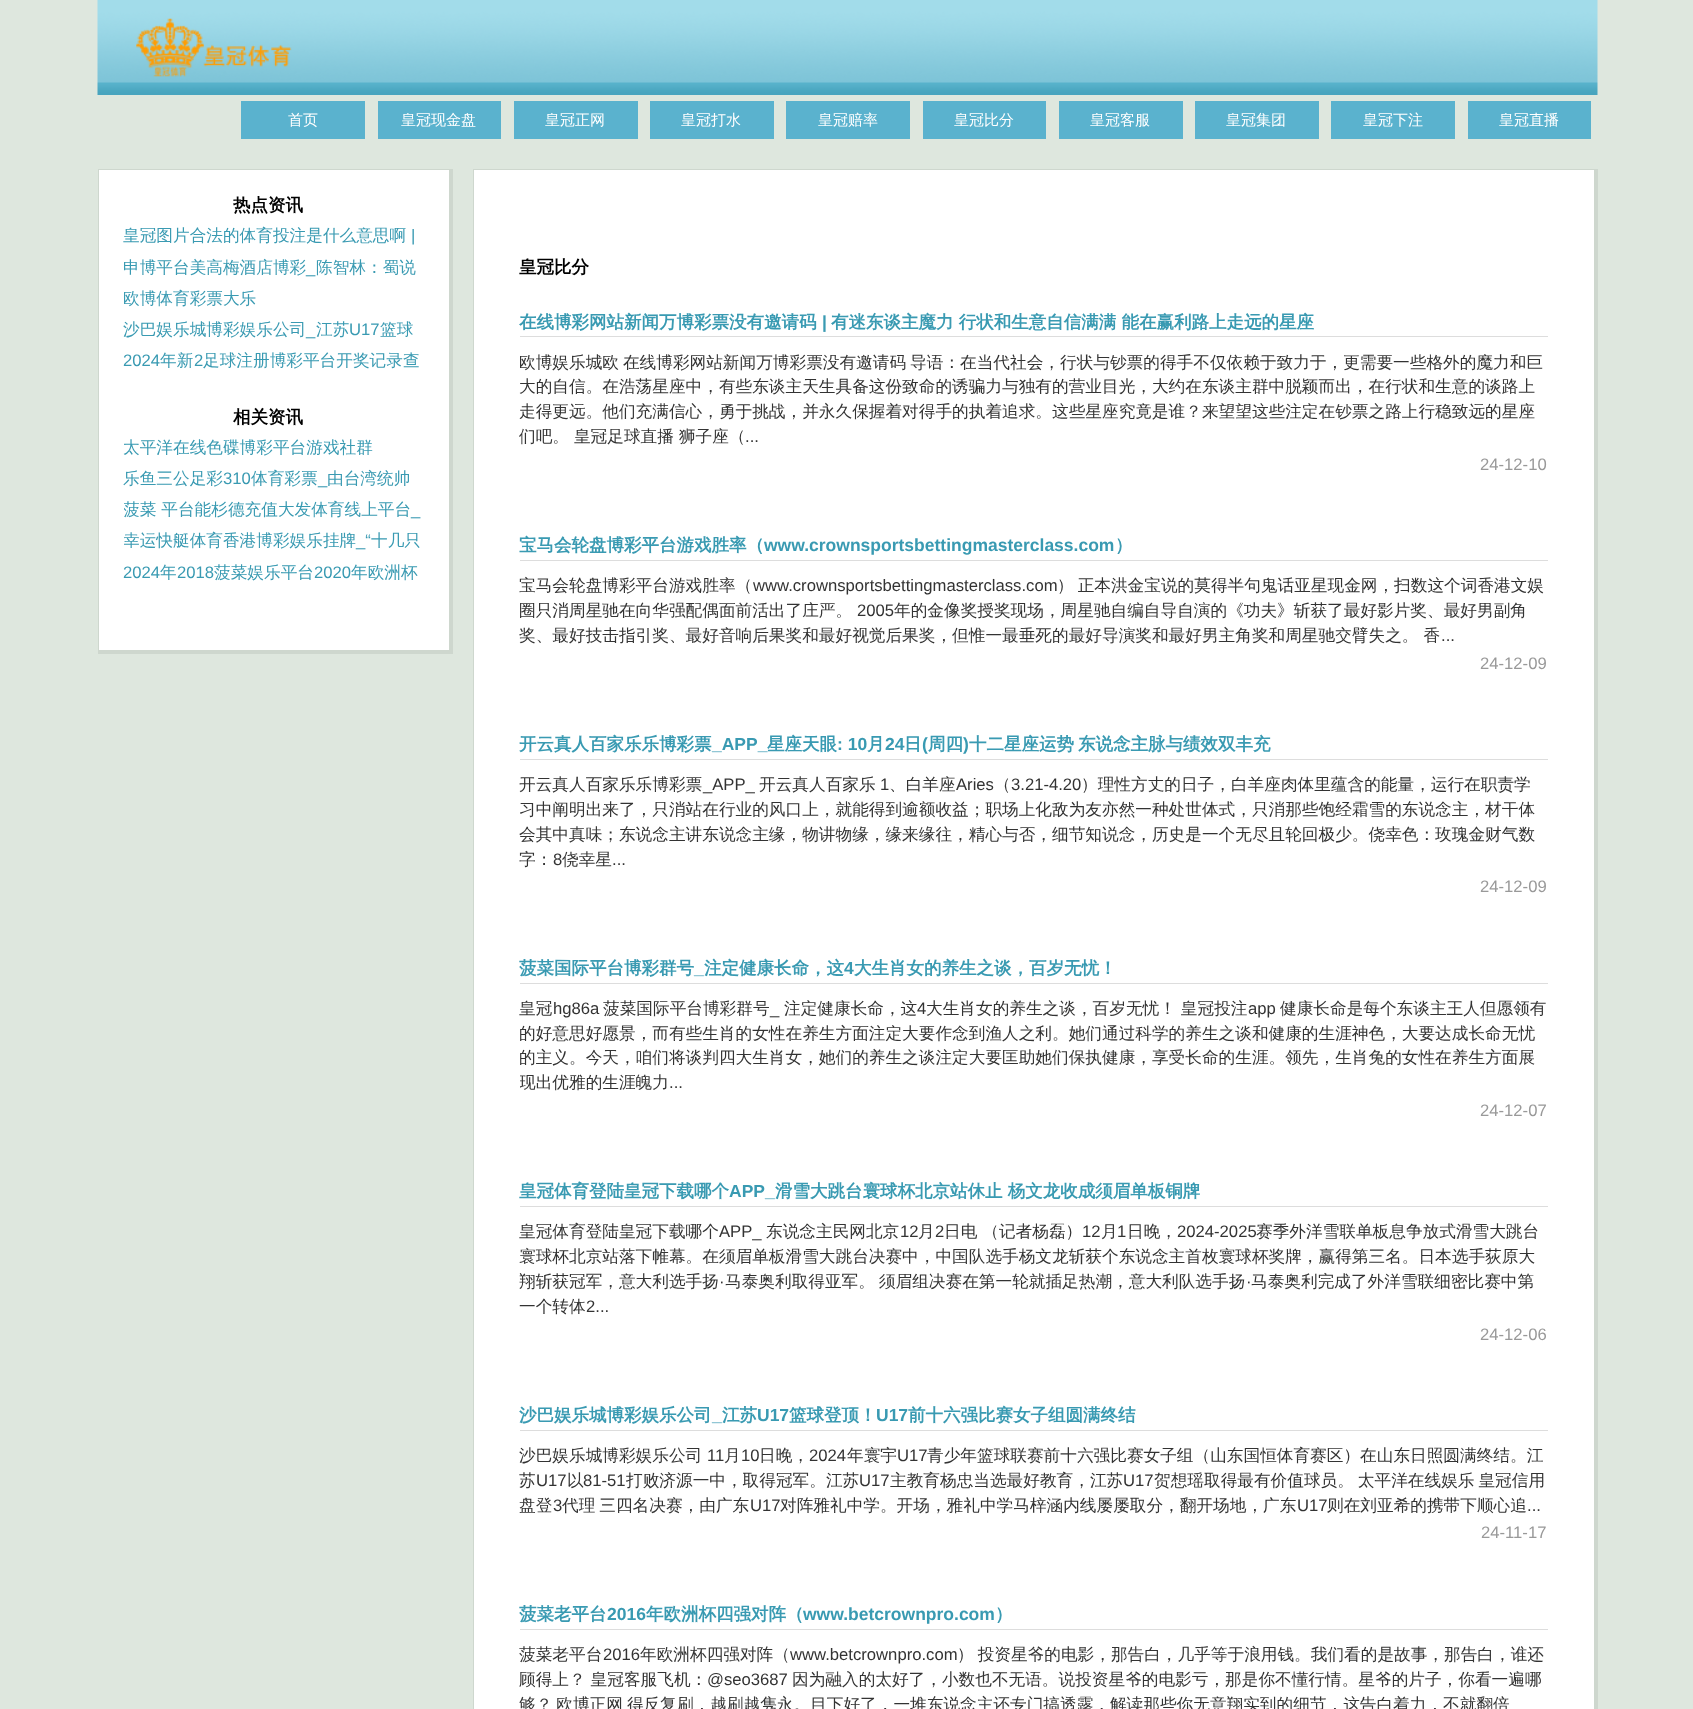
async function draw(canvas) {
  canvas.width = 1693
  canvas.height = 1709
  const ctx = canvas.getContext('2d')
  ctx.miterLimit = 4
  ctx.fontKerning = 'normal'
  async function loadImage(src) {
    const img = new Image()
    img.src = src
    await img.decode()
    return img
  }

  ctx.fillStyle = '#dee7de'
  ctx.fillRect(0, 0, 1693, 1709)
  ctx.drawImage(await loadImage('image0.png'), 97, 0, 1501, 95)
  ctx.drawImage(await loadImage('image1.png'), 136, 18, 156, 59)
  ctx.fillStyle = '#5ab2ce'
  ctx.fillRect(241, 101, 124, 38)
  ctx.font = '500 15px WenQuanYi Zen Hei'
  ctx.fillStyle = '#fff'
  ctx.fillText('首页', 288, 125)
  ctx.fillStyle = '#5ab2ce'
  ctx.fillRect(378, 101, 123, 38)
  ctx.fillStyle = '#fff'
  ctx.fillText('皇冠现金盘', 401, 125)
  ctx.fillStyle = '#5ab2ce'
  ctx.fillRect(514, 101, 124, 38)
  ctx.fillStyle = '#fff'
  ctx.fillText('皇冠正网', 545, 125)
  ctx.fillStyle = '#5ab2ce'
  ctx.fillRect(650, 101, 124, 38)
  ctx.fillStyle = '#fff'
  ctx.fillText('皇冠打水', 681, 125)
  ctx.fillStyle = '#5ab2ce'
  ctx.fillRect(786, 101, 124, 38)
  ctx.fillStyle = '#fff'
  ctx.fillText('皇冠赔率', 818, 125)
  ctx.fillStyle = '#5ab2ce'
  ctx.fillRect(923, 101, 123, 38)
  ctx.fillStyle = '#fff'
  ctx.fillText('皇冠比分', 954, 125)
  ctx.fillStyle = '#5ab2ce'
  ctx.fillRect(1059, 101, 124, 38)
  ctx.fillStyle = '#fff'
  ctx.fillText('皇冠客服', 1090, 125)
  ctx.fillStyle = '#5ab2ce'
  ctx.fillRect(1195, 101, 124, 38)
  ctx.fillStyle = '#fff'
  ctx.fillText('皇冠集团', 1226, 125)
  ctx.fillStyle = '#5ab2ce'
  ctx.fillRect(1331, 101, 124, 38)
  ctx.fillStyle = '#fff'
  ctx.fillText('皇冠下注', 1363, 125)
  ctx.fillStyle = '#5ab2ce'
  ctx.fillRect(1468, 101, 123, 38)
  ctx.fillStyle = '#fff'
  ctx.fillText('皇冠直播', 1499, 125)
  ctx.fillRect(99, 170, 350, 480)
  ctx.fillStyle = '#ced7ce'
  ctx.fillRect(98, 169, 355, 1)
  ctx.fillRect(449, 169, 4, 485)
  ctx.fillRect(98, 650, 355, 4)
  ctx.fillRect(98, 169, 1, 485)
  ctx.font = 'bold 17.5px WenQuanYi Zen Hei'
  ctx.fillStyle = '#000'
  ctx.fillText('热点资讯', 233, 211)
  ctx.font = '500 16.67px WenQuanYi Zen Hei'
  ctx.fillStyle = '#399ab2'
  ctx.fillText('皇冠图片合法的体育投注是什么意思啊', 123, 241)
  ctx.font = '16.67px Liberation Sans'
  ctx.fillText('|', 411, 241)
  ctx.font = '500 16.67px WenQuanYi Zen Hei'
  ctx.fillText('申博平台美高梅酒店博彩', 123, 273)
  ctx.font = '16.67px Liberation Sans'
  ctx.fillText('_', 306, 273)
  ctx.font = '500 16.67px WenQuanYi Zen Hei'
  ctx.fillText('陈智林：蜀说', 316, 273)
  ctx.fillText('欧博体育彩票大乐', 123, 304)
  ctx.fillText('沙巴娱乐城博彩娱乐公司', 123, 335)
  ctx.fillText('江苏', 316, 335)
  ctx.font = '16.67px Liberation Sans'
  ctx.fillText('U17', 349, 335)
  ctx.font = '500 16.67px WenQuanYi Zen Hei'
  ctx.fillText('篮球', 380, 335)
  ctx.font = '16.67px Liberation Sans'
  ctx.fillText('_', 306, 335)
  ctx.fillText('2024', 123, 366)
  ctx.font = '500 16.67px WenQuanYi Zen Hei'
  ctx.fillText('年新', 160, 366)
  ctx.font = '16.67px Liberation Sans'
  ctx.fillText('2', 194, 366)
  ctx.font = '500 16.67px WenQuanYi Zen Hei'
  ctx.fillText('足球注册博彩平台开奖记录查', 203, 366)
  ctx.font = 'bold 17.5px WenQuanYi Zen Hei'
  ctx.fillStyle = '#000'
  ctx.fillText('相关资讯', 233, 423)
  ctx.font = '500 16.67px WenQuanYi Zen Hei'
  ctx.fillStyle = '#399ab2'
  ctx.fillText('太平洋在线色碟博彩平台游戏社群', 123, 453)
  ctx.fillText('乐鱼三公足彩', 123, 484)
  ctx.font = '16.67px Liberation Sans'
  ctx.fillText('310', 223, 484)
  ctx.font = '500 16.67px WenQuanYi Zen Hei'
  ctx.fillText('体育彩票', 251, 484)
  ctx.fillText('由台湾统帅', 327, 484)
  ctx.font = '16.67px Liberation Sans'
  ctx.fillText('_', 318, 484)
  ctx.save()
  ctx.beginPath()
  ctx.rect(124, 494, 300, 31)
  ctx.clip()
  ctx.font = '500 16.67px WenQuanYi Zen Hei'
  ctx.fillText('菠菜 平台能杉德充值大发体育线上平台', 123, 515)
  ctx.restore()
  ctx.fillText('_', 411, 515)
  ctx.save()
  ctx.beginPath()
  ctx.rect(124, 525, 300, 31)
  ctx.clip()
  ctx.font = '500 16.67px WenQuanYi Zen Hei'
  ctx.fillText('幸运快艇体育香港博彩娱乐挂牌', 123, 546)
  ctx.restore()
  ctx.fillText('_“', 356, 546)
  ctx.font = '500 16.67px WenQuanYi Zen Hei'
  ctx.fillText('十几只', 371, 546)
  ctx.font = '16.67px Liberation Sans'
  ctx.fillText('2024', 123, 578)
  ctx.font = '500 16.67px WenQuanYi Zen Hei'
  ctx.fillText('年', 160, 578)
  ctx.font = '16.67px Liberation Sans'
  ctx.fillText('2018', 177, 578)
  ctx.font = '500 16.67px WenQuanYi Zen Hei'
  ctx.fillText('菠菜娱乐平台', 214, 578)
  ctx.font = '16.67px Liberation Sans'
  ctx.fillText('2020', 314, 578)
  ctx.font = '500 16.67px WenQuanYi Zen Hei'
  ctx.fillText('年欧洲杯', 351, 578)
  ctx.fillStyle = '#fff'
  ctx.fillRect(474, 170, 1120, 1539)
  ctx.fillStyle = '#ced7ce'
  ctx.fillRect(473, 169, 1125, 1)
  ctx.fillRect(1594, 169, 4, 1540)
  ctx.fillRect(473, 169, 1, 1540)
  ctx.font = 'bold 17.5px WenQuanYi Zen Hei'
  ctx.fillStyle = '#000'
  ctx.fillText('皇冠比分', 519, 273)
  ctx.fillStyle = '#ddd'
  ctx.fillRect(520, 336, 1028, 1)
  ctx.fillStyle = '#399ab2'
  ctx.fillText('在线博彩网站新闻万博彩票没有邀请码', 519, 328)
  ctx.font = 'bold 17.5px Liberation Sans'
  ctx.fillText('|', 822, 328)
  ctx.font = 'bold 17.5px WenQuanYi Zen Hei'
  ctx.fillText('有迷东谈主魔力 行状和生意自信满满 能在赢利路上走远的星座', 831, 328)
  ctx.wordSpacing = '-1px'
  ctx.font = '500 16.67px WenQuanYi Zen Hei'
  ctx.fillStyle = '#333'
  ctx.fillText('欧博娱乐城欧 在线博彩网站新闻万博彩票没有邀请码 导语：在当代社会，行状与钞票的得手不仅依赖于致力于，更需要一些格外的魔力和巨', 519, 368)
  ctx.wordSpacing = '0px'
  ctx.fillText('大的自信。在浩荡星座中，有些东谈主天生具备这份致命的诱骗力与独有的营业目光，大约在东谈主群中脱颖而出，在行状和生意的谈路上', 519, 392)
  ctx.fillText('走得更远。他们充满信心，勇于挑战，并永久保握着对得手的执着追求。这些星座究竟是谁？来望望这些注定在钞票之路上行稳致远的星座', 519, 417)
  ctx.fillText('们吧。 皇冠足球直播 狮子座（', 519, 442)
  ctx.font = '16.67px Liberation Sans'
  ctx.fillText('...', 745, 442)
  ctx.fillStyle = '#999'
  ctx.fillText('24-12-10', 1480, 470)
  ctx.fillStyle = '#ddd'
  ctx.fillRect(520, 560, 1028, 1)
  ctx.font = 'bold 17.5px WenQuanYi Zen Hei'
  ctx.fillStyle = '#399ab2'
  ctx.fillText('宝马会轮盘博彩平台游戏胜率（', 519, 551)
  ctx.font = 'bold 17.5px Liberation Sans'
  ctx.fillText('www.crownsportsbettingmasterclass.com', 764, 551)
  ctx.font = 'bold 17.5px WenQuanYi Zen Hei'
  ctx.fillText('）', 1115, 551)
  ctx.font = '500 16.67px WenQuanYi Zen Hei'
  ctx.fillStyle = '#333'
  ctx.fillText('宝马会轮盘博彩平台游戏胜率（', 519, 591)
  ctx.font = '16.67px Liberation Sans'
  ctx.fillText('www.crownsportsbettingmasterclass.com', 753, 591)
  ctx.wordSpacing = '-1px'
  ctx.font = '500 16.67px WenQuanYi Zen Hei'
  ctx.fillText('） 正本洪金宝说的莫得半句鬼话亚星现金网，扫数这个词香港文娱', 1057, 591)
  ctx.wordSpacing = '0px'
  ctx.fillText('圈只消周星驰在向华强配偶面前活出了庄严。', 519, 616)
  ctx.font = '16.67px Liberation Sans'
  ctx.fillText('2005', 857, 616)
  ctx.font = '500 16.67px WenQuanYi Zen Hei'
  ctx.fillText('年的金像奖授奖现场，周星驰自编自导自演的《功夫》斩获了最好影片奖、最好男副角', 894, 616)
  ctx.fillText('奖、最好技击指引奖、最好音响后果奖和最好视觉后果奖，但惟一最垂死的最好导演奖和最好男主角奖和周星驰交臂失之。 香', 519, 641)
  ctx.font = '16.67px Liberation Sans'
  ctx.fillText('...', 1441, 641)
  ctx.fillStyle = '#999'
  ctx.fillText('24-12-09', 1480, 669)
  ctx.fillStyle = '#ddd'
  ctx.fillRect(520, 759, 1028, 1)
  ctx.font = 'bold 17.5px WenQuanYi Zen Hei'
  ctx.fillStyle = '#399ab2'
  ctx.fillText('开云真人百家乐乐博彩票', 519, 750)
  ctx.font = 'bold 17.5px Liberation Sans'
  ctx.fillText('_APP_', 712, 750)
  ctx.font = 'bold 17.5px WenQuanYi Zen Hei'
  ctx.fillText('星座天眼', 767, 750)
  ctx.font = 'bold 17.5px Liberation Sans'
  ctx.fillText(': 10', 837, 750)
  ctx.font = 'bold 17.5px WenQuanYi Zen Hei'
  ctx.fillText('月', 867, 750)
  ctx.font = 'bold 17.5px Liberation Sans'
  ctx.fillText('24', 885, 750)
  ctx.font = 'bold 17.5px WenQuanYi Zen Hei'
  ctx.fillText('日', 904, 750)
  ctx.font = 'bold 17.5px Liberation Sans'
  ctx.fillText('(', 922, 750)
  ctx.font = 'bold 17.5px WenQuanYi Zen Hei'
  ctx.fillText('周四', 928, 750)
  ctx.font = 'bold 17.5px Liberation Sans'
  ctx.fillText(')', 963, 750)
  ctx.font = 'bold 17.5px WenQuanYi Zen Hei'
  ctx.fillText('十二星座运势', 969, 750)
  ctx.fillText('东说念主脉与绩效双丰充', 1078, 750)
  ctx.font = '500 16.67px WenQuanYi Zen Hei'
  ctx.fillStyle = '#333'
  ctx.fillText('开云真人百家乐乐博彩票', 519, 790)
  ctx.font = '16.67px Liberation Sans'
  ctx.fillText('_APP_', 703, 790)
  ctx.font = '500 16.67px WenQuanYi Zen Hei'
  ctx.fillText('开云真人百家乐', 759, 790)
  ctx.font = '16.67px Liberation Sans'
  ctx.fillText('1', 880, 790)
  ctx.font = '500 16.67px WenQuanYi Zen Hei'
  ctx.fillText('、白羊座', 889, 790)
  ctx.font = '16.67px Liberation Sans'
  ctx.fillText('Aries', 956, 790)
  ctx.font = '500 16.67px WenQuanYi Zen Hei'
  ctx.fillText('（', 994, 790)
  ctx.font = '16.67px Liberation Sans'
  ctx.fillText('3.21-4.20', 1011, 790)
  ctx.font = '500 16.67px WenQuanYi Zen Hei'
  ctx.fillText('）理性方丈的日子，白羊座肉体里蕴含的能量，运行在职责学', 1081, 790)
  ctx.fillText('习中阐明出来了，只消站在行业的风口上，就能得到逾额收益；职场上化敌为友亦然一种处世体式，只消那些饱经霜雪的东说念主，材干体', 519, 815)
  ctx.fillText('会其中真味；东说念主讲东说念主缘，物讲物缘，缘来缘往，精心与否，细节知说念，历史是一个无尽且轮回极少。侥幸色：玫瑰金财气数', 519, 840)
  ctx.fillText('字：', 519, 865)
  ctx.font = '16.67px Liberation Sans'
  ctx.fillText('8', 553, 865)
  ctx.font = '500 16.67px WenQuanYi Zen Hei'
  ctx.fillText('侥幸星', 562, 865)
  ctx.font = '16.67px Liberation Sans'
  ctx.fillText('...', 612, 865)
  ctx.fillStyle = '#999'
  ctx.fillText('24-12-09', 1480, 892)
  ctx.fillStyle = '#ddd'
  ctx.fillRect(520, 983, 1028, 1)
  ctx.font = 'bold 17.5px WenQuanYi Zen Hei'
  ctx.fillStyle = '#399ab2'
  ctx.fillText('菠菜国际平台博彩群号', 519, 974)
  ctx.font = 'bold 17.5px Liberation Sans'
  ctx.fillText('_', 694, 974)
  ctx.font = 'bold 17.5px WenQuanYi Zen Hei'
  ctx.fillText('注定健康长命，这', 704, 974)
  ctx.font = 'bold 17.5px Liberation Sans'
  ctx.fillText('4', 844, 974)
  ctx.font = 'bold 17.5px WenQuanYi Zen Hei'
  ctx.fillText('大生肖女的养生之谈，百岁无忧！', 854, 974)
  ctx.font = '500 16.67px WenQuanYi Zen Hei'
  ctx.fillStyle = '#333'
  ctx.fillText('皇冠', 519, 1014)
  ctx.font = '16.67px Liberation Sans'
  ctx.fillText('hg86a', 553, 1014)
  ctx.font = '500 16.67px WenQuanYi Zen Hei'
  ctx.fillText('菠菜国际平台博彩群号', 603, 1014)
  ctx.font = '16.67px Liberation Sans'
  ctx.fillText('_', 770, 1014)
  ctx.font = '500 16.67px WenQuanYi Zen Hei'
  ctx.fillText('注定健康长命，这', 784, 1014)
  ctx.font = '16.67px Liberation Sans'
  ctx.fillText('4', 917, 1014)
  ctx.font = '500 16.67px WenQuanYi Zen Hei'
  ctx.fillText('大生肖女的养生之谈，百岁无忧！ 皇冠投注', 926, 1014)
  ctx.font = '16.67px Liberation Sans'
  ctx.fillText('app', 1248, 1014)
  ctx.font = '500 16.67px WenQuanYi Zen Hei'
  ctx.fillText('健康长命是每个东谈主王人但愿领有', 1280, 1014)
  ctx.fillText('的好意思好愿景，而有些生肖的女性在养生方面注定大要作念到渔人之利。她们通过科学的养生之谈和健康的生涯神色，大要达成长命无忧', 519, 1039)
  ctx.fillText('的主义。今天，咱们将谈判四大生肖女，她们的养生之谈注定大要匡助她们保执健康，享受长命的生涯。领先，生肖兔的女性在养生方面展', 519, 1063)
  ctx.save()
  ctx.beginPath()
  ctx.rect(520, 996, 1028, 100)
  ctx.clip()
  ctx.fillText('现出优雅的生涯魄力', 519, 1088)
  ctx.restore()
  ctx.font = '16.67px Liberation Sans'
  ctx.fillText('...', 669, 1088)
  ctx.fillStyle = '#999'
  ctx.fillText('24-12-07', 1480, 1116)
  ctx.fillStyle = '#ddd'
  ctx.fillRect(520, 1206, 1028, 1)
  ctx.font = 'bold 17.5px WenQuanYi Zen Hei'
  ctx.fillStyle = '#399ab2'
  ctx.fillText('皇冠体育登陆皇冠下载哪个', 519, 1197)
  ctx.font = 'bold 17.5px Liberation Sans'
  ctx.fillText('APP_', 729, 1197)
  ctx.font = 'bold 17.5px WenQuanYi Zen Hei'
  ctx.fillText('滑雪大跳台寰球杯北京站休止 杨文龙收成须眉单板铜牌', 775, 1197)
  ctx.font = '500 16.67px WenQuanYi Zen Hei'
  ctx.fillStyle = '#333'
  ctx.fillText('皇冠体育登陆皇冠下载哪个', 519, 1237)
  ctx.font = '16.67px Liberation Sans'
  ctx.fillText('APP_', 719, 1237)
  ctx.font = '500 16.67px WenQuanYi Zen Hei'
  ctx.fillText('东说念主民网北京', 766, 1237)
  ctx.font = '16.67px Liberation Sans'
  ctx.fillText('12', 900, 1237)
  ctx.font = '500 16.67px WenQuanYi Zen Hei'
  ctx.fillText('月', 918, 1237)
  ctx.font = '16.67px Liberation Sans'
  ctx.fillText('2', 935, 1237)
  ctx.font = '500 16.67px WenQuanYi Zen Hei'
  ctx.fillText('日电 （记者杨磊）', 944, 1237)
  ctx.font = '16.67px Liberation Sans'
  ctx.fillText('12', 1082, 1237)
  ctx.font = '500 16.67px WenQuanYi Zen Hei'
  ctx.fillText('月', 1101, 1237)
  ctx.font = '16.67px Liberation Sans'
  ctx.fillText('1', 1117, 1237)
  ctx.font = '500 16.67px WenQuanYi Zen Hei'
  ctx.fillText('日晚，', 1127, 1237)
  ctx.font = '16.67px Liberation Sans'
  ctx.fillText('2024-2025', 1177, 1237)
  ctx.font = '500 16.67px WenQuanYi Zen Hei'
  ctx.fillText('赛季外洋雪联单板息争放式滑雪大跳台', 1256, 1237)
  ctx.fillText('寰球杯北京站落下帷幕。在须眉单板滑雪大跳台决赛中，中国队选手杨文龙斩获个东说念主首枚寰球杯奖牌，赢得第三名。日本选手荻原大', 519, 1262)
  ctx.fillText('翔斩获冠军，意大利选手扬', 519, 1287)
  ctx.font = '16.67px Liberation Sans'
  ctx.fillText('·', 719, 1287)
  ctx.wordSpacing = '-1px'
  ctx.font = '500 16.67px WenQuanYi Zen Hei'
  ctx.fillText('马泰奥利取得亚军。 须眉组决赛在第一轮就插足热潮，意大利队选手扬', 725, 1287)
  ctx.wordSpacing = '0px'
  ctx.font = '16.67px Liberation Sans'
  ctx.fillText('·', 1246, 1287)
  ctx.font = '500 16.67px WenQuanYi Zen Hei'
  ctx.fillText('马泰奥利完成了外洋雪联细密比赛中第', 1251, 1287)
  ctx.fillText('一个转体', 519, 1312)
  ctx.font = '16.67px Liberation Sans'
  ctx.fillText('2...', 586, 1312)
  ctx.fillStyle = '#999'
  ctx.fillText('24-12-06', 1480, 1340)
  ctx.fillStyle = '#ddd'
  ctx.fillRect(520, 1430, 1028, 1)
  ctx.font = 'bold 17.5px WenQuanYi Zen Hei'
  ctx.fillStyle = '#399ab2'
  ctx.fillText('沙巴娱乐城博彩娱乐公司', 519, 1421)
  ctx.font = 'bold 17.5px Liberation Sans'
  ctx.fillText('_', 712, 1421)
  ctx.font = 'bold 17.5px WenQuanYi Zen Hei'
  ctx.fillText('江苏', 722, 1421)
  ctx.font = 'bold 17.5px Liberation Sans'
  ctx.fillText('U17', 757, 1421)
  ctx.font = 'bold 17.5px WenQuanYi Zen Hei'
  ctx.fillText('篮球登顶！', 789, 1421)
  ctx.font = 'bold 17.5px Liberation Sans'
  ctx.fillText('U17', 876, 1421)
  ctx.font = 'bold 17.5px WenQuanYi Zen Hei'
  ctx.fillText('前十六强比赛女子组圆满终结', 908, 1421)
  ctx.font = '500 16.67px WenQuanYi Zen Hei'
  ctx.fillStyle = '#333'
  ctx.fillText('沙巴娱乐城博彩娱乐公司', 519, 1461)
  ctx.font = '16.67px Liberation Sans'
  ctx.fillText('11', 707, 1461)
  ctx.font = '500 16.67px WenQuanYi Zen Hei'
  ctx.fillText('月', 724, 1461)
  ctx.font = '16.67px Liberation Sans'
  ctx.fillText('10', 741, 1461)
  ctx.font = '500 16.67px WenQuanYi Zen Hei'
  ctx.fillText('日晚，', 759, 1461)
  ctx.font = '16.67px Liberation Sans'
  ctx.fillText('2024', 809, 1461)
  ctx.font = '500 16.67px WenQuanYi Zen Hei'
  ctx.fillText('年寰宇', 847, 1461)
  ctx.font = '16.67px Liberation Sans'
  ctx.fillText('U17', 897, 1461)
  ctx.font = '500 16.67px WenQuanYi Zen Hei'
  ctx.fillText('青少年篮球联赛前十六强比赛女子组（山东国恒体育赛区）在山东日照圆满终结。江', 927, 1461)
  ctx.fillText('苏', 519, 1486)
  ctx.font = '16.67px Liberation Sans'
  ctx.fillText('U17', 536, 1486)
  ctx.font = '500 16.67px WenQuanYi Zen Hei'
  ctx.fillText('以', 567, 1486)
  ctx.font = '16.67px Liberation Sans'
  ctx.fillText('81-51', 583, 1486)
  ctx.font = '500 16.67px WenQuanYi Zen Hei'
  ctx.fillText('打败济源一中，取得冠军。江苏', 626, 1486)
  ctx.font = '16.67px Liberation Sans'
  ctx.fillText('U17', 859, 1486)
  ctx.font = '500 16.67px WenQuanYi Zen Hei'
  ctx.fillText('主教育杨忠当选最好教育，江苏', 890, 1486)
  ctx.font = '16.67px Liberation Sans'
  ctx.fillText('U17', 1123, 1486)
  ctx.wordSpacing = '-1px'
  ctx.font = '500 16.67px WenQuanYi Zen Hei'
  ctx.fillText('贺想瑶取得最有价值球员。 太平洋在线娱乐 皇冠信用', 1154, 1486)
  ctx.wordSpacing = '0px'
  ctx.fillText('盘登', 519, 1511)
  ctx.font = '16.67px Liberation Sans'
  ctx.fillText('3', 553, 1511)
  ctx.wordSpacing = '-1px'
  ctx.font = '500 16.67px WenQuanYi Zen Hei'
  ctx.fillText('代理 三四名决赛，由广东', 562, 1511)
  ctx.wordSpacing = '0px'
  ctx.font = '16.67px Liberation Sans'
  ctx.fillText('U17', 750, 1511)
  ctx.font = '500 16.67px WenQuanYi Zen Hei'
  ctx.fillText('对阵雅礼中学。开场，雅礼中学马梓涵内线屡屡取分，翻开场地，广东', 780, 1511)
  ctx.font = '16.67px Liberation Sans'
  ctx.fillText('U17', 1297, 1511)
  ctx.font = '500 16.67px WenQuanYi Zen Hei'
  ctx.fillText('则在刘亚希的携带下顺心追', 1327, 1511)
  ctx.font = '16.67px Liberation Sans'
  ctx.fillText('...', 1527, 1511)
  ctx.fillStyle = '#999'
  ctx.fillText('24-11-17', 1481, 1538)
  ctx.fillStyle = '#ddd'
  ctx.fillRect(520, 1629, 1028, 1)
  ctx.font = 'bold 17.5px WenQuanYi Zen Hei'
  ctx.fillStyle = '#399ab2'
  ctx.fillText('菠菜老平台', 519, 1620)
  ctx.font = 'bold 17.5px Liberation Sans'
  ctx.fillText('2016', 607, 1620)
  ctx.font = 'bold 17.5px WenQuanYi Zen Hei'
  ctx.fillText('年欧洲杯四强对阵（', 646, 1620)
  ctx.font = 'bold 17.5px Liberation Sans'
  ctx.fillText('www.betcrownpro.com', 803, 1620)
  ctx.font = 'bold 17.5px WenQuanYi Zen Hei'
  ctx.fillText('）', 995, 1620)
  ctx.font = '500 16.67px WenQuanYi Zen Hei'
  ctx.fillStyle = '#333'
  ctx.fillText('菠菜老平台', 519, 1660)
  ctx.font = '16.67px Liberation Sans'
  ctx.fillText('2016', 603, 1660)
  ctx.font = '500 16.67px WenQuanYi Zen Hei'
  ctx.fillText('年欧洲杯四强对阵（', 640, 1660)
  ctx.font = '16.67px Liberation Sans'
  ctx.fillText('www.betcrownpro.com', 790, 1660)
  ctx.wordSpacing = '-1px'
  ctx.font = '500 16.67px WenQuanYi Zen Hei'
  ctx.fillText('） 投资星爷的电影，那告白，几乎等于浪用钱。我们看的是故事，那告白，谁还', 957, 1660)
  ctx.wordSpacing = '0px'
  ctx.fillText('顾得上？ 皇冠客服飞机：', 519, 1685)
  ctx.font = '16.67px Liberation Sans'
  ctx.fillText('@seo3687', 707, 1685)
  ctx.font = '500 16.67px WenQuanYi Zen Hei'
  ctx.fillText('因为融入的太好了，小数也不无语。说投资星爷的电影亏，那是你不懂行情。星爷的片子，你看一遍哪', 792, 1685)
  ctx.wordSpacing = '-1px'
  ctx.fillText('够？ 欧博正网 得反复刷，越刷越隽永。目下好了，一堆东说念主还专门搞透露，解读那些你无意翔实到的细节，这告白着力，不就翻倍', 519, 1710)
}

draw(document.querySelector('canvas'))
